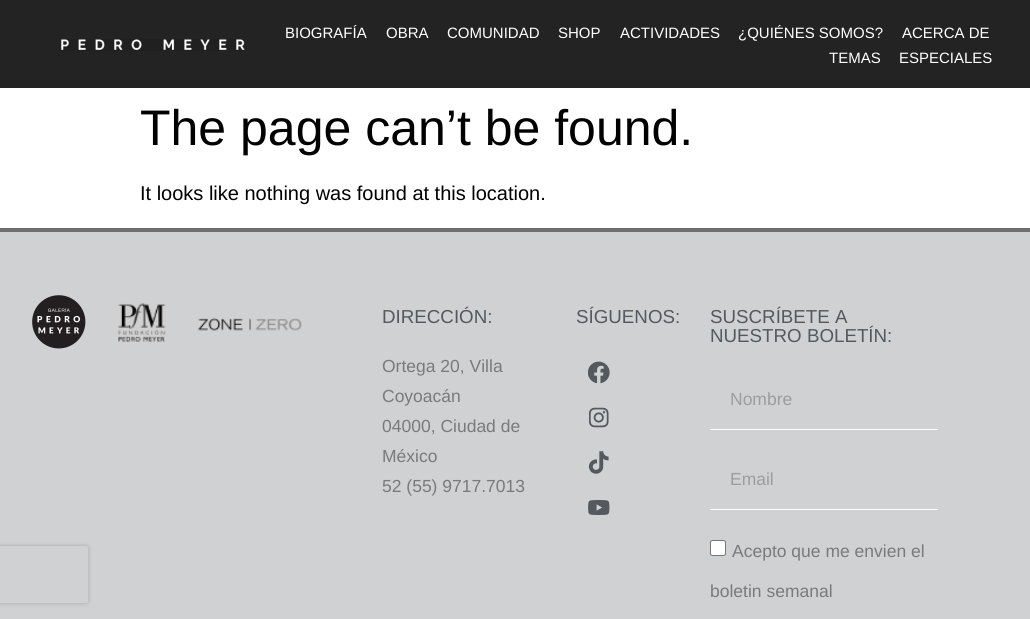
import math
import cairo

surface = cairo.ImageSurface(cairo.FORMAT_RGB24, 1030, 619)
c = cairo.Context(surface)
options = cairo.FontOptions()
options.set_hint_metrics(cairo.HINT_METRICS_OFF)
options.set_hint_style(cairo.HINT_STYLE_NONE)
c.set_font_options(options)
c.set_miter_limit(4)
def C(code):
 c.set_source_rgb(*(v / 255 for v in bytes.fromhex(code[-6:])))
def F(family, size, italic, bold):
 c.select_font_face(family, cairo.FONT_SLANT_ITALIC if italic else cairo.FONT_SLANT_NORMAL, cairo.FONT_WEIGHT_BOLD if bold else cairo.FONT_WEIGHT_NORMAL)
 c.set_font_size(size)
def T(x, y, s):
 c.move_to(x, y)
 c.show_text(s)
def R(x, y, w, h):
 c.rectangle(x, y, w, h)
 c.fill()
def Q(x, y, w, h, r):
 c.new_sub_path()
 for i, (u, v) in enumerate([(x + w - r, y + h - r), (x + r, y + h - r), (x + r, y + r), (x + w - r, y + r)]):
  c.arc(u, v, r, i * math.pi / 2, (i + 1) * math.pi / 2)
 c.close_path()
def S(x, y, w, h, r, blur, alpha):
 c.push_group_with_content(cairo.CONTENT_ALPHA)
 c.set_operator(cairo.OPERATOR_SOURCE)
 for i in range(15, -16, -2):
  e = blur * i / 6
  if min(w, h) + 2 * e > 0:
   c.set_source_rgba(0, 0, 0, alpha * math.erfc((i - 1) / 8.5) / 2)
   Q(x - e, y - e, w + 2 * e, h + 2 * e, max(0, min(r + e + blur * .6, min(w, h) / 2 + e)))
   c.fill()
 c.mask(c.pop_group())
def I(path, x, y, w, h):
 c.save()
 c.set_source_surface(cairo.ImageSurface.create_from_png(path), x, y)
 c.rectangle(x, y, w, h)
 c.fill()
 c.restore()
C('ffffff')
c.paint()
C('232323')
R(0,0,1030,88)
I('1.png',61,39,184,12)
F('Liberation Sans',15,0,0)
C('ffffff')
T(285,38,'BIOGRAFÍA')
T(386,38,'OBRA')
T(447,38,'COMUNIDAD')
T(558,38,'SHOP')
T(620,38,'ACTIVIDADES')
T(738,38,'¿QUIÉNES SOMOS?')
T(902,38,'ACERCA DE')
T(829,63,'TEMAS')
T(899,63,'ESPECIALES')
F('Liberation Sans',50,0,0)
C('000000')
T(140,145,'The page can’t be found.')
F('Liberation Sans',20,0,0)
T(140,200,'It looks like nothing was found at this location.')
C('cfd1d2')
R(0,232,1030,387)
C('6f6f6f')
R(0,228,1030,4)
I('2.png',32,295,54,54)
I('3.png',118,303,48,39)
I('4.png',198,318,104,13)
F('Liberation Sans',18.75,0,0)
C('54595f')
T(382,323,'DIRECCIÓN:')
F('Liberation Sans',17.5,0,0)
C('7a7a7a')
T(382,372,'Ortega 20, Villa')
T(382,402,'Coyoacán')
T(382,432,'04000, Ciudad de')
T(382,462,'México')
T(382,492,'52 (55) 9717.7013')
F('Liberation Sans',18.75,0,0)
C('54595f')
T(576,323,'SÍGUENOS:')
I('5.png',588,361,22,23)
I('6.png',589,407,20,21)
I('7.png',588,451,21,23)
I('8.png',588,500,22,15)
T(710,323,'SUSCRÍBETE A')
T(710,342,'NUESTRO BOLETÍN:')
C('ffffff')
R(710,429,228,1)
F('Liberation Sans',17.5,0,0)
C('9c9d9d')
T(730,405,'Nombre')
C('ffffff')
R(710,509,228,1)
C('9c9d9d')
T(730,485,'Email')
c.save()
c.set_fill_rule(cairo.FILL_RULE_EVEN_ODD)
c.new_path()
c.move_to(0,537)
c.line_to(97,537)
c.line_to(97,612)
c.line_to(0,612)
c.close_path()
c.move_to(-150,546)
c.line_to(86,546)
c.curve_to(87,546,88,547,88,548)
c.line_to(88,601)
c.curve_to(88,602,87,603,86,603)
c.line_to(-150,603)
c.curve_to(-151,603,-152,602,-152,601)
c.line_to(-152,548)
c.curve_to(-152,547,-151,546,-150,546)
c.close_path()
c.clip()
C('a8a9a9')
S(-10,546,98,57,2,2.5,1)
c.restore()
C('ffffff')
Q(710.5,540.5,15,15,2)
c.fill_preserve()
C('767676')
c.set_line_width(1)
c.stroke()
C('7a7a7a')
T(732,557,'Acepto que me envien el')
T(710,597,'boletin semanal')
surface.write_to_png('o.png')
